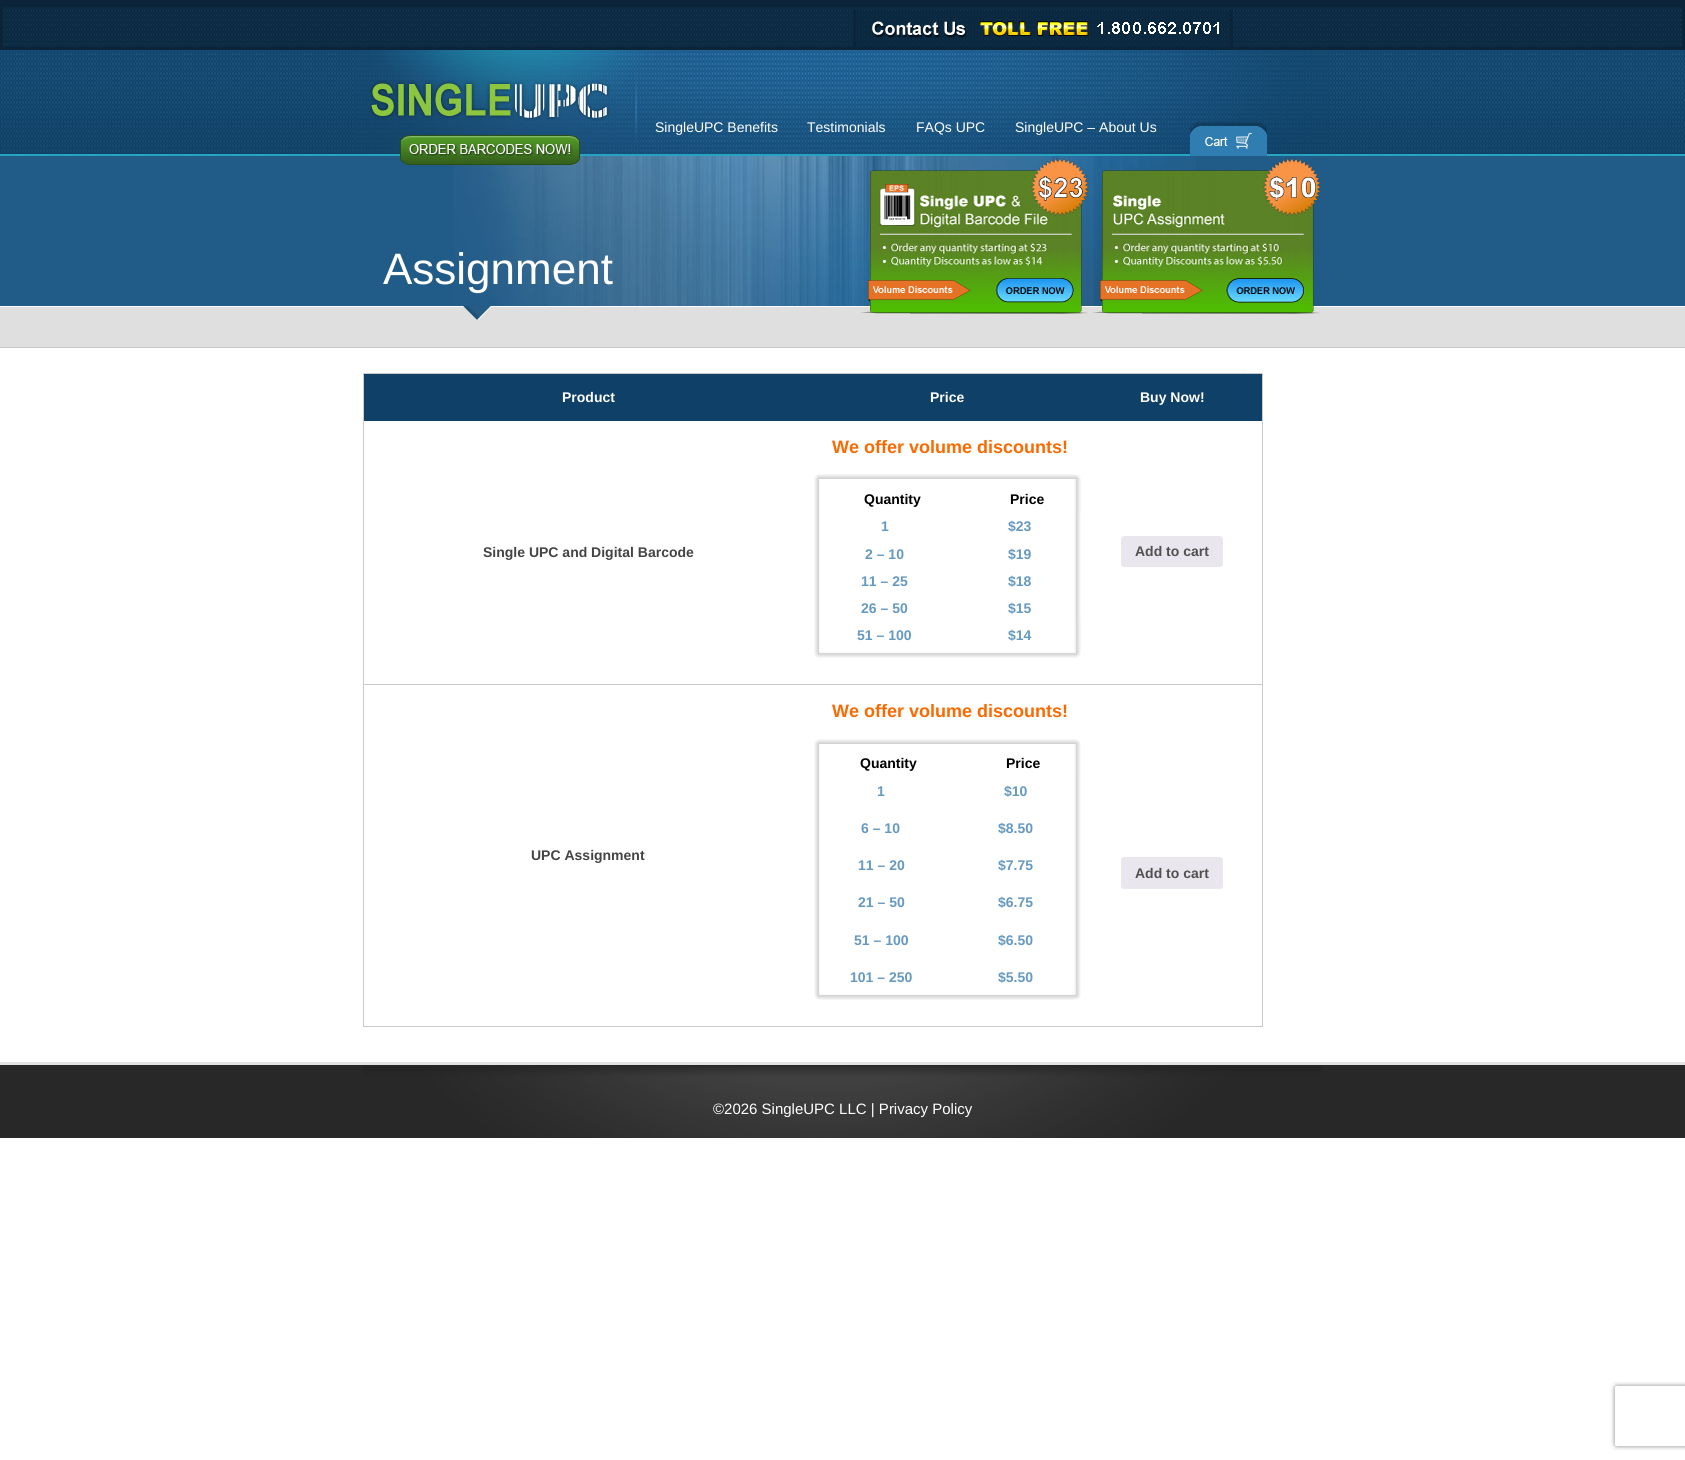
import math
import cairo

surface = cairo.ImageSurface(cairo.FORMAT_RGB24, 1685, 1460)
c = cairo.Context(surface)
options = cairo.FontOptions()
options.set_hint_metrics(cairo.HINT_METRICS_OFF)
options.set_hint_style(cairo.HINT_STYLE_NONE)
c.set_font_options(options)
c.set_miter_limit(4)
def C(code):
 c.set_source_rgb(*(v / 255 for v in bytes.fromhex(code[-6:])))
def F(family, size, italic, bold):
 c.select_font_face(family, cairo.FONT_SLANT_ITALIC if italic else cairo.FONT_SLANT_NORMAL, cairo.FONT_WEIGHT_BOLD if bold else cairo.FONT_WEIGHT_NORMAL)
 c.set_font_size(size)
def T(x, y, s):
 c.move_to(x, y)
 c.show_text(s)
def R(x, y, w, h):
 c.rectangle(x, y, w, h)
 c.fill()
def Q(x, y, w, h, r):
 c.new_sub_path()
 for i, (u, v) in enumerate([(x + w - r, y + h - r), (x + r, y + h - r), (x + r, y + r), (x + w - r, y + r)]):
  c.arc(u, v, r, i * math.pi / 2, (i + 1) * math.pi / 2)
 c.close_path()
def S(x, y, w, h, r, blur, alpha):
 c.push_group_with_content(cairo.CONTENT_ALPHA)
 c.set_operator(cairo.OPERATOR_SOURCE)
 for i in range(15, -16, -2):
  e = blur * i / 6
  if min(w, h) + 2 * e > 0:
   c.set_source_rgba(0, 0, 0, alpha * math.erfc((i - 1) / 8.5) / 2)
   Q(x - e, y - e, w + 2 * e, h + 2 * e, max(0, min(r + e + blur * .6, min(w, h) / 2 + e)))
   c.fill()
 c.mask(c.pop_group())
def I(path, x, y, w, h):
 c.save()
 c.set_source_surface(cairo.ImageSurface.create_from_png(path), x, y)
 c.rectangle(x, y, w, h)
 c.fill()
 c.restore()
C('ffffff')
c.paint()
C('0c2439')
R(0,0,1685,4)
I('1.png',3,7,1679,40)
c.rectangle(1.5,5.5,1682,43)
c.set_line_width(3)
c.stroke()
I('2.png',856,10,374,37)
R(1230,10,3,40)
R(853,10,3,40)
I('3.png',0,50,1685,104)
C('26a3c1')
R(0,154,1685,2)
I('4.png',356,50,974,104)
I('5.png',369,80,241,41)
F('Liberation Sans',14,0,0)
C('ffffff')
T(655,132,'SingleUPC Benefits')
T(807,132,'Testimonials')
T(916,132,'FAQs UPC')
T(1015,132,'SingleUPC – About Us')
I('6.png',1190,121,77,35)
C('215b87')
R(0,156,1685,150)
I('8.png',453,156,743,150)
I('7.png',400,135,180,30)
F('Liberation Sans',44,0,0)
C('ffffff')
T(383,284,'Assignment')
C('dfdfdf')
R(0,307,1685,40)
C('fcfcfc')
R(0,306,1685,1)
I('9.png',861,158,228,156)
I('10.png',1093,158,228,156)
C('c7c7c7')
R(0,347,1685,1)
I('11.png',463,306,28,14)
C('cacaca')
R(363,373,900,1)
R(1262,373,1,654)
R(363,1026,900,1)
R(363,373,1,654)
C('0f4067')
R(364,374,898,47)
F('Liberation Sans',14,0,1)
C('ffffff')
T(562,402,'Product')
T(930,402,'Price')
T(1140,402,'Buy Now!')
C('444444')
T(483,557,'Single UPC and Digital Barcode')
F('Liberation Sans',18,0,1)
C('fb6a00')
T(832,453,'We offer volume discounts!')
I('12.png',814,474,158,39)
F('Liberation Sans',14,0,1)
C('000000')
T(864,504,'Quantity')
I('13.png',972,474,109,39)
T(1010,504,'Price')
I('14.png',814,513,6,28)
C('6599c0')
T(881,531,'1')
I('15.png',1074,513,7,28)
T(1008,531,'$23')
I('16.png',814,541,6,27)
T(865,559,'2 – 10')
I('17.png',1074,541,7,27)
T(1008,559,'$19')
I('16.png',814,568,6,27)
T(861,586,'11 – 25')
I('17.png',1074,568,7,27)
T(1008,586,'$18')
I('16.png',814,595,6,27)
T(861,613,'26 – 50')
I('17.png',1074,595,7,27)
T(1008,613,'$15')
I('18.png',814,622,158,36)
T(857,640,'51 – 100')
I('19.png',972,622,109,36)
T(1008,640,'$14')
C('cacaca')
R(363,684,900,1)
C('e9e6ed')
Q(1121,536,102,31,3)
c.fill()
C('515151')
T(1135,556,'Add to cart')
C('444444')
T(531,860,'UPC Assignment')
F('Liberation Sans',18,0,1)
C('fb6a00')
T(832,717,'We offer volume discounts!')
I('20.png',814,739,150,39)
F('Liberation Sans',14,0,1)
C('000000')
T(860,768,'Quantity')
I('21.png',964,739,117,39)
T(1006,768,'Price')
I('22.png',814,778,6,37)
C('6599c0')
T(877,796,'1')
I('23.png',1074,778,7,37)
T(1004,796,'$10')
I('22.png',814,815,6,37)
T(861,833,'6 – 10')
I('23.png',1074,815,7,37)
T(998,833,'$8.50')
I('22.png',814,852,6,37)
T(858,870,'11 – 20')
I('23.png',1074,852,7,37)
T(998,870,'$7.75')
I('24.png',814,889,6,38)
T(858,907,'21 – 50')
I('25.png',1074,889,7,38)
T(998,907,'$6.75')
I('22.png',814,927,6,37)
T(854,945,'51 – 100')
I('23.png',1074,927,7,37)
T(998,945,'$6.50')
I('26.png',814,964,150,36)
T(850,982,'101 – 250')
I('27.png',964,964,117,36)
T(998,982,'$5.50')
C('e9e6ed')
Q(1121,857,102,32,3)
c.fill()
C('515151')
T(1135,878,'Add to cart')
C('282828')
R(0,1065,1685,73)
C('e2e2e2')
R(0,1062,1685,3)
I('28.png',363,1066,959,72)
F('Liberation Sans',15,0,0)
C('ffffff')
T(713,1114,'©2026 SingleUPC LLC | Privacy Policy')
c.save()
c.set_fill_rule(cairo.FILL_RULE_EVEN_ODD)
c.new_path()
c.move_to(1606,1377)
c.line_to(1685,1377)
c.line_to(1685,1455)
c.line_to(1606,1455)
c.close_path()
c.move_to(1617,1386)
c.line_to(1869,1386)
c.curve_to(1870,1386,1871,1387,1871,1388)
c.line_to(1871,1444)
c.curve_to(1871,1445,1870,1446,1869,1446)
c.line_to(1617,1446)
c.curve_to(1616,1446,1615,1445,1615,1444)
c.line_to(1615,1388)
c.curve_to(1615,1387,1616,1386,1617,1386)
c.close_path()
c.clip()
C('808080')
S(1615,1386,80,60,2,2.5,1)
c.restore()
surface.write_to_png('o.png')
